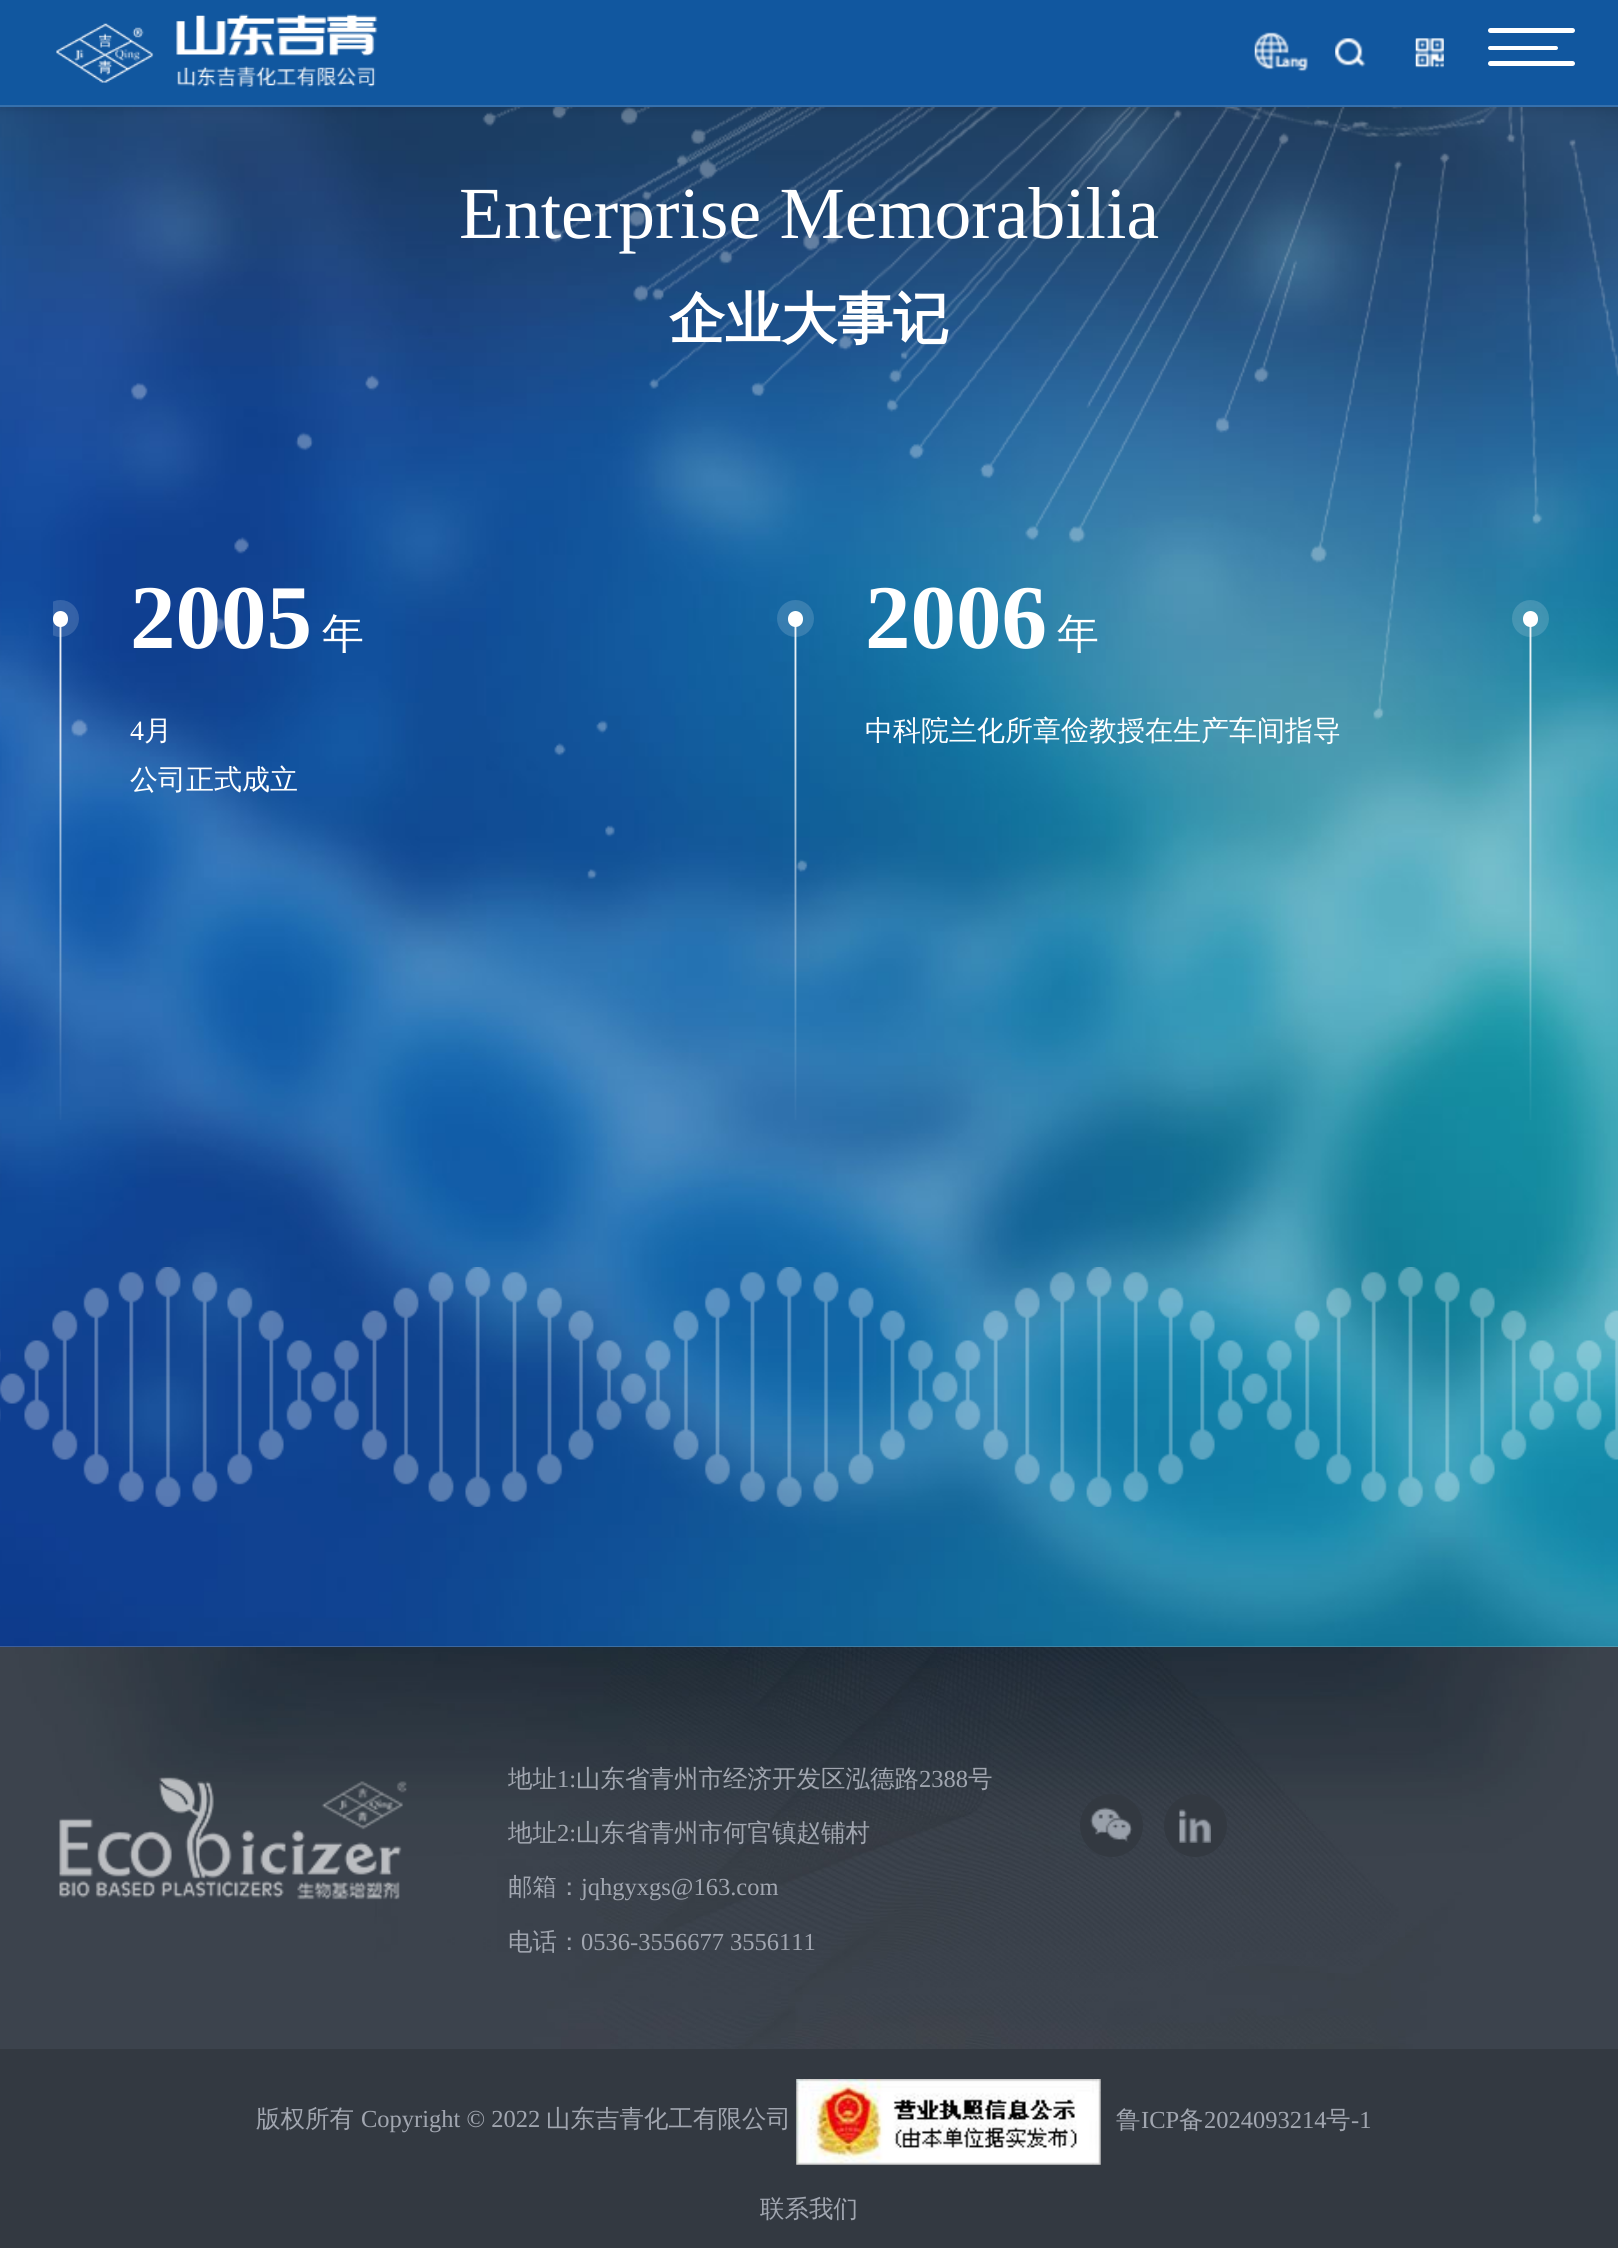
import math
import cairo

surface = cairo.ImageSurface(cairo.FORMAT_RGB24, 1618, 2248)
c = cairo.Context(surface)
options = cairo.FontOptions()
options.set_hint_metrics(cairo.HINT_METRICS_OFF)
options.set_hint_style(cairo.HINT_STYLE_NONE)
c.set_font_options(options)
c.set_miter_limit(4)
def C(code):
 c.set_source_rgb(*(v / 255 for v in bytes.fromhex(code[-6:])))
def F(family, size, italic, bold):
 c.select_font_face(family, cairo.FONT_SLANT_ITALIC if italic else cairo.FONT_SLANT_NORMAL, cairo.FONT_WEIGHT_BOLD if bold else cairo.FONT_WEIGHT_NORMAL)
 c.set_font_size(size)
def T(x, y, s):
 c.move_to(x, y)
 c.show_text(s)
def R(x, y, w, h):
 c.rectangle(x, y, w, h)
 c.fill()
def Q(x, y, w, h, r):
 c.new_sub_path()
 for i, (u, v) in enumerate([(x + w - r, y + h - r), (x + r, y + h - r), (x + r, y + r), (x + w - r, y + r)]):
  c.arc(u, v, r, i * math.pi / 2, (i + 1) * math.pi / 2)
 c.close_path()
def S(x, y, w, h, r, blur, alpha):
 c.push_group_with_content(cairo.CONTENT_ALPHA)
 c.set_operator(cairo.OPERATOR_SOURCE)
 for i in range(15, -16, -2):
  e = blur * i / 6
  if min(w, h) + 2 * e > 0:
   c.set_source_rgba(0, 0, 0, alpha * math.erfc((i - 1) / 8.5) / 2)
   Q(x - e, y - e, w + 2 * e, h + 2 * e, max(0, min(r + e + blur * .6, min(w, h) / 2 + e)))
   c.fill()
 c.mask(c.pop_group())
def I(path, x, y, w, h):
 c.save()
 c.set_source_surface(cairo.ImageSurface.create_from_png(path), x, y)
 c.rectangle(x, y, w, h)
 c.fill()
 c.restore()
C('ffffff')
c.paint()
I('11.png',0,1646,1618,403)
I('5.png',0,107,1618,1540)
I('6.png',71,107,1547,772)
C('000000')
S(0,4,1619,106,0,5,.1)
C('ffffff')
R(0,0,1618,105)
c.set_source_rgba(0.024,0.31,0.608,0.95)
R(0,0,1618,105)
C('3570ad')
R(0,105,1618,2)
I('1.png',56,14,322,73)
I('2.png',1254,32,54,40)
I('3.png',1335,38,31,29)
I('4.png',1415,38,29,30)
C('ffffff')
Q(1488,28,87,5,2.5)
c.fill()
Q(1488,46,70,4,2)
c.fill()
Q(1488,61,87,5,2.5)
c.fill()
F('Liberation Serif',73.5,0,0)
T(459,238,'Enterprise Memorabilia')
F('WenQuanYi Zen Hei',56,0,1)
T(669,338,'企业大事记')
I('7.png',59,626,3,494)
c.save()
c.rectangle(53,571,1513,574)
c.clip()
c.arc(60.5,618.5,13,0,2 * math.pi)
c.set_source_rgba(1,1,1,0.15)
c.set_line_width(11)
c.stroke()
c.restore()
Q(53,611,15,16,7.5)
c.fill()
F('Liberation Serif',91,0,1)
T(130,648,'2005')
F('WenQuanYi Zen Hei Medium',42,0,0)
T(322,648,'年')
F('Liberation Serif',28,0,0)
T(130,740,'4')
F('WenQuanYi Zen Hei Medium',28,0,0)
T(144,740,'月')
T(130,789,'公司正式成立')
I('8.png',794,626,3,494)
c.arc(795.5,618.5,13,0,2 * math.pi)
c.set_source_rgba(1,1,1,0.15)
c.set_line_width(11)
c.stroke()
C('ffffff')
Q(788,611,15,16,7.5)
c.fill()
F('Liberation Serif',91,0,1)
T(865,648,'2006')
F('WenQuanYi Zen Hei Medium',42,0,0)
T(1057,648,'年')
F('WenQuanYi Zen Hei Medium',28,0,0)
T(865,740,'中科院兰化所章俭教授在生产车间指导')
I('9.png',1529,626,3,494)
c.arc(1530.5,618.5,13,0,2 * math.pi)
c.set_source_rgba(1,1,1,0.15)
c.stroke()
C('ffffff')
Q(1523,611,15,16,7.5)
c.fill()
I('10.png',0,1267,1618,240)
I('12.png',59,1777,348,123)
F('WenQuanYi Zen Hei Medium',24.5,0,0)
C('a1a6b0')
T(508,1787,'地址')
F('Liberation Serif',24.5,0,0)
T(557,1787,'1:')
F('WenQuanYi Zen Hei Medium',24.5,0,0)
T(576,1787,'山东省青州市经济开发区泓德路')
F('Liberation Serif',24.5,0,0)
T(919,1787,'2388')
F('WenQuanYi Zen Hei Medium',24.5,0,0)
T(968,1787,'号')
T(508,1841,'地址')
F('Liberation Serif',24.5,0,0)
T(557,1841,'2:')
F('WenQuanYi Zen Hei Medium',24.5,0,0)
T(576,1841,'山东省青州市何官镇赵铺村')
T(508,1895,'邮箱：')
F('Liberation Serif',24.5,0,0)
T(581,1895,'jqhgyxgs@163.com')
F('WenQuanYi Zen Hei Medium',24.5,0,0)
T(508,1950,'电话：')
F('Liberation Serif',24.5,0,0)
T(581,1950,'0536-3556677 3556111')
C('333941')
c.new_path()
c.arc(1111.5,1825.5,31.5,0,2 * math.pi)
c.fill()
I('13.png',1090,1807,43,36)
c.arc(1195.5,1825.5,31.5,0,2 * math.pi)
c.fill()
I('14.png',1179,1809,32,34)
R(0,2049,1618,199)
F('WenQuanYi Zen Hei Medium',24.5,0,0)
C('a1a6b0')
T(256,2127,'版权所有')
F('Liberation Serif',24.5,0,0)
T(361,2127,'Copyright © 2022')
F('WenQuanYi Zen Hei Medium',24.5,0,0)
T(546,2127,'山东吉青化工有限公司')
I('15.png',796,2079,305,86)
T(1116,2128,'鲁')
F('Liberation Serif',24.5,0,0)
T(1141,2128,'ICP')
F('WenQuanYi Zen Hei Medium',24.5,0,0)
T(1179,2128,'备')
F('Liberation Serif',24.5,0,0)
T(1204,2128,'2024093214')
F('WenQuanYi Zen Hei Medium',24.5,0,0)
T(1326,2128,'号')
F('Liberation Serif',24.5,0,0)
T(1351,2128,'-1')
F('WenQuanYi Zen Hei Medium',24.5,0,0)
T(760,2217,'联系我们')
surface.write_to_png('o.png')
